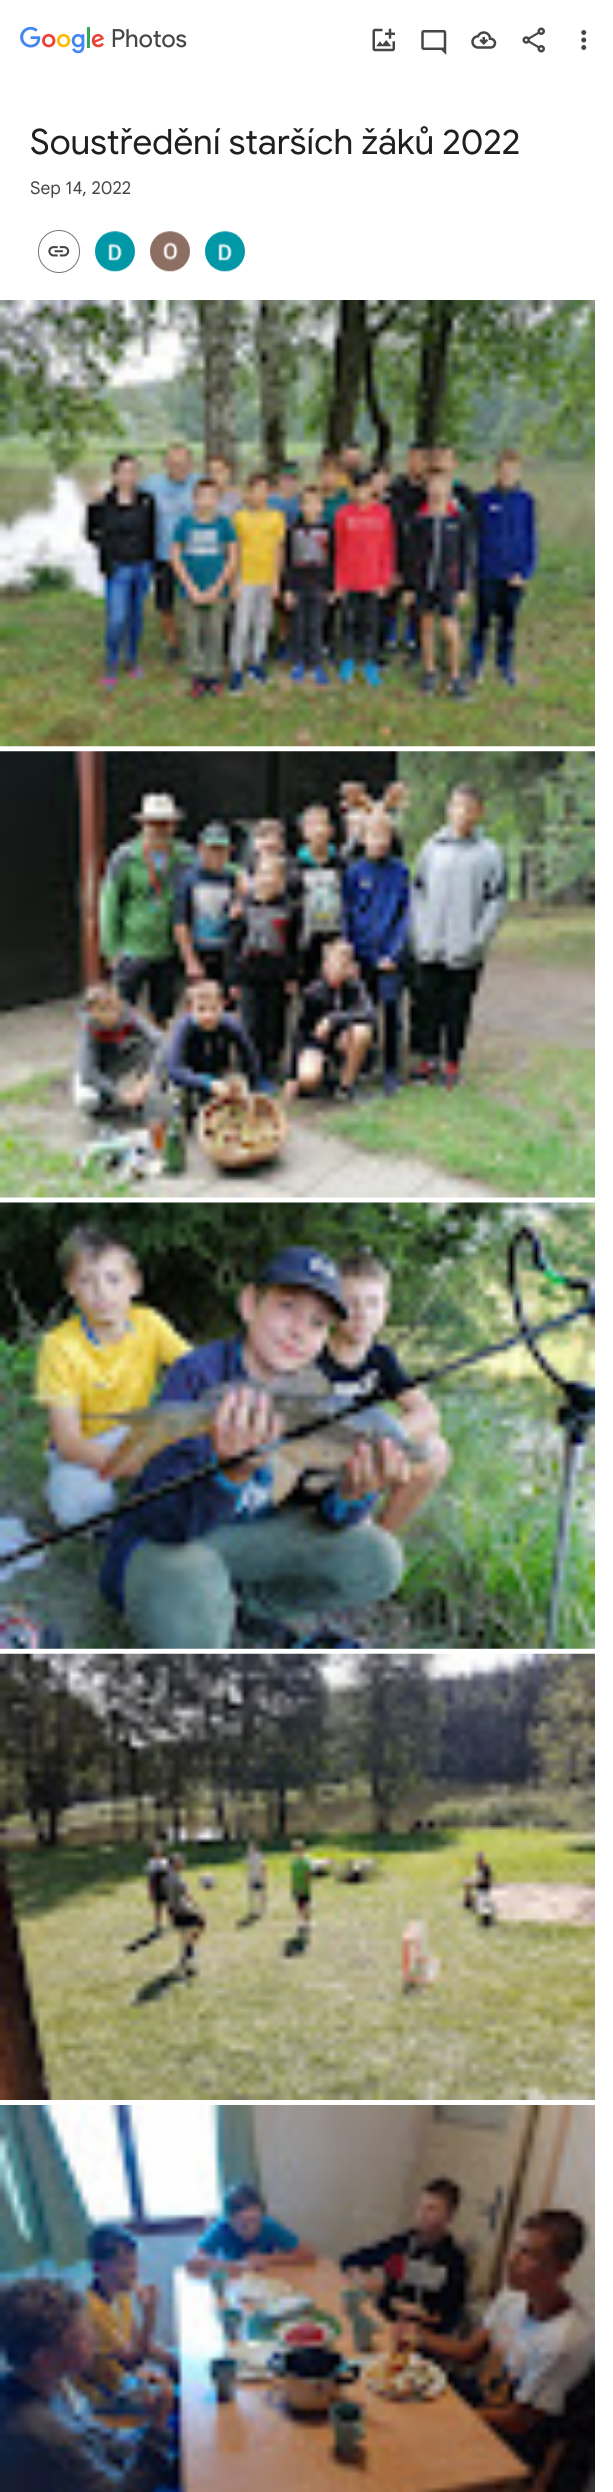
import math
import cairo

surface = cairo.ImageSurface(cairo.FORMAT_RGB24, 613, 2492)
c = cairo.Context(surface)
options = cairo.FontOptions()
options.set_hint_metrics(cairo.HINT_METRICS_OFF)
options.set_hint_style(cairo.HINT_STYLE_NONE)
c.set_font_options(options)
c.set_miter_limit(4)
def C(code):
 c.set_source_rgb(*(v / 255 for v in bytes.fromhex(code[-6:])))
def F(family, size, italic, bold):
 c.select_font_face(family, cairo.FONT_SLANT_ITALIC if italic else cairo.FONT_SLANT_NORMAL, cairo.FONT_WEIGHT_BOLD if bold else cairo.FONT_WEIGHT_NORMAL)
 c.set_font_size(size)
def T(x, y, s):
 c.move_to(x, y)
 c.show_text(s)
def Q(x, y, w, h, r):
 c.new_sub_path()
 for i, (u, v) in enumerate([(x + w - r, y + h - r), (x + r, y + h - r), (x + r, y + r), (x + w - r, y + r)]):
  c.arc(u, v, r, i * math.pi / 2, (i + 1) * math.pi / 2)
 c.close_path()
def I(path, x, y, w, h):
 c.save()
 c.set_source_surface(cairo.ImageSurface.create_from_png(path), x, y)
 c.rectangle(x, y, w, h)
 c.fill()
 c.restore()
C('ffffff')
c.paint()
I('1.png',20,26,84,28)
F('Product Sans',25,0,0)
C('444746')
T(111,47,'Photos')
I('2.png',372,28,23,24)
I('3.png',421,30,26,25)
I('4.png',471,31,26,18)
I('5.png',522,27,23,26)
I('6.png',581,30,6,20)
F('Google Sans',35,0,0)
C('1f1f1f')
T(30,154,'Soustředění starších žáků 2022')
F('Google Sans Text',17.5,0,0)
C('444746')
T(30,194,'Sep 14, 2022')
Q(38.5,230.5,41,42,20.5)
C('747775')
c.set_line_width(1)
c.stroke()
I('7.png',48,246,22,11)
I('8.png',95,231,40,41)
I('9.png',150,231,40,41)
I('10.png',205,231,40,41)
I('11.png',0,300,595,447)
I('12.png',0,751,595,447)
I('13.png',0,1202,595,447)
I('14.png',0,1653,595,447)
I('15.png',0,2105,595,387)
surface.write_to_png('o.png')
